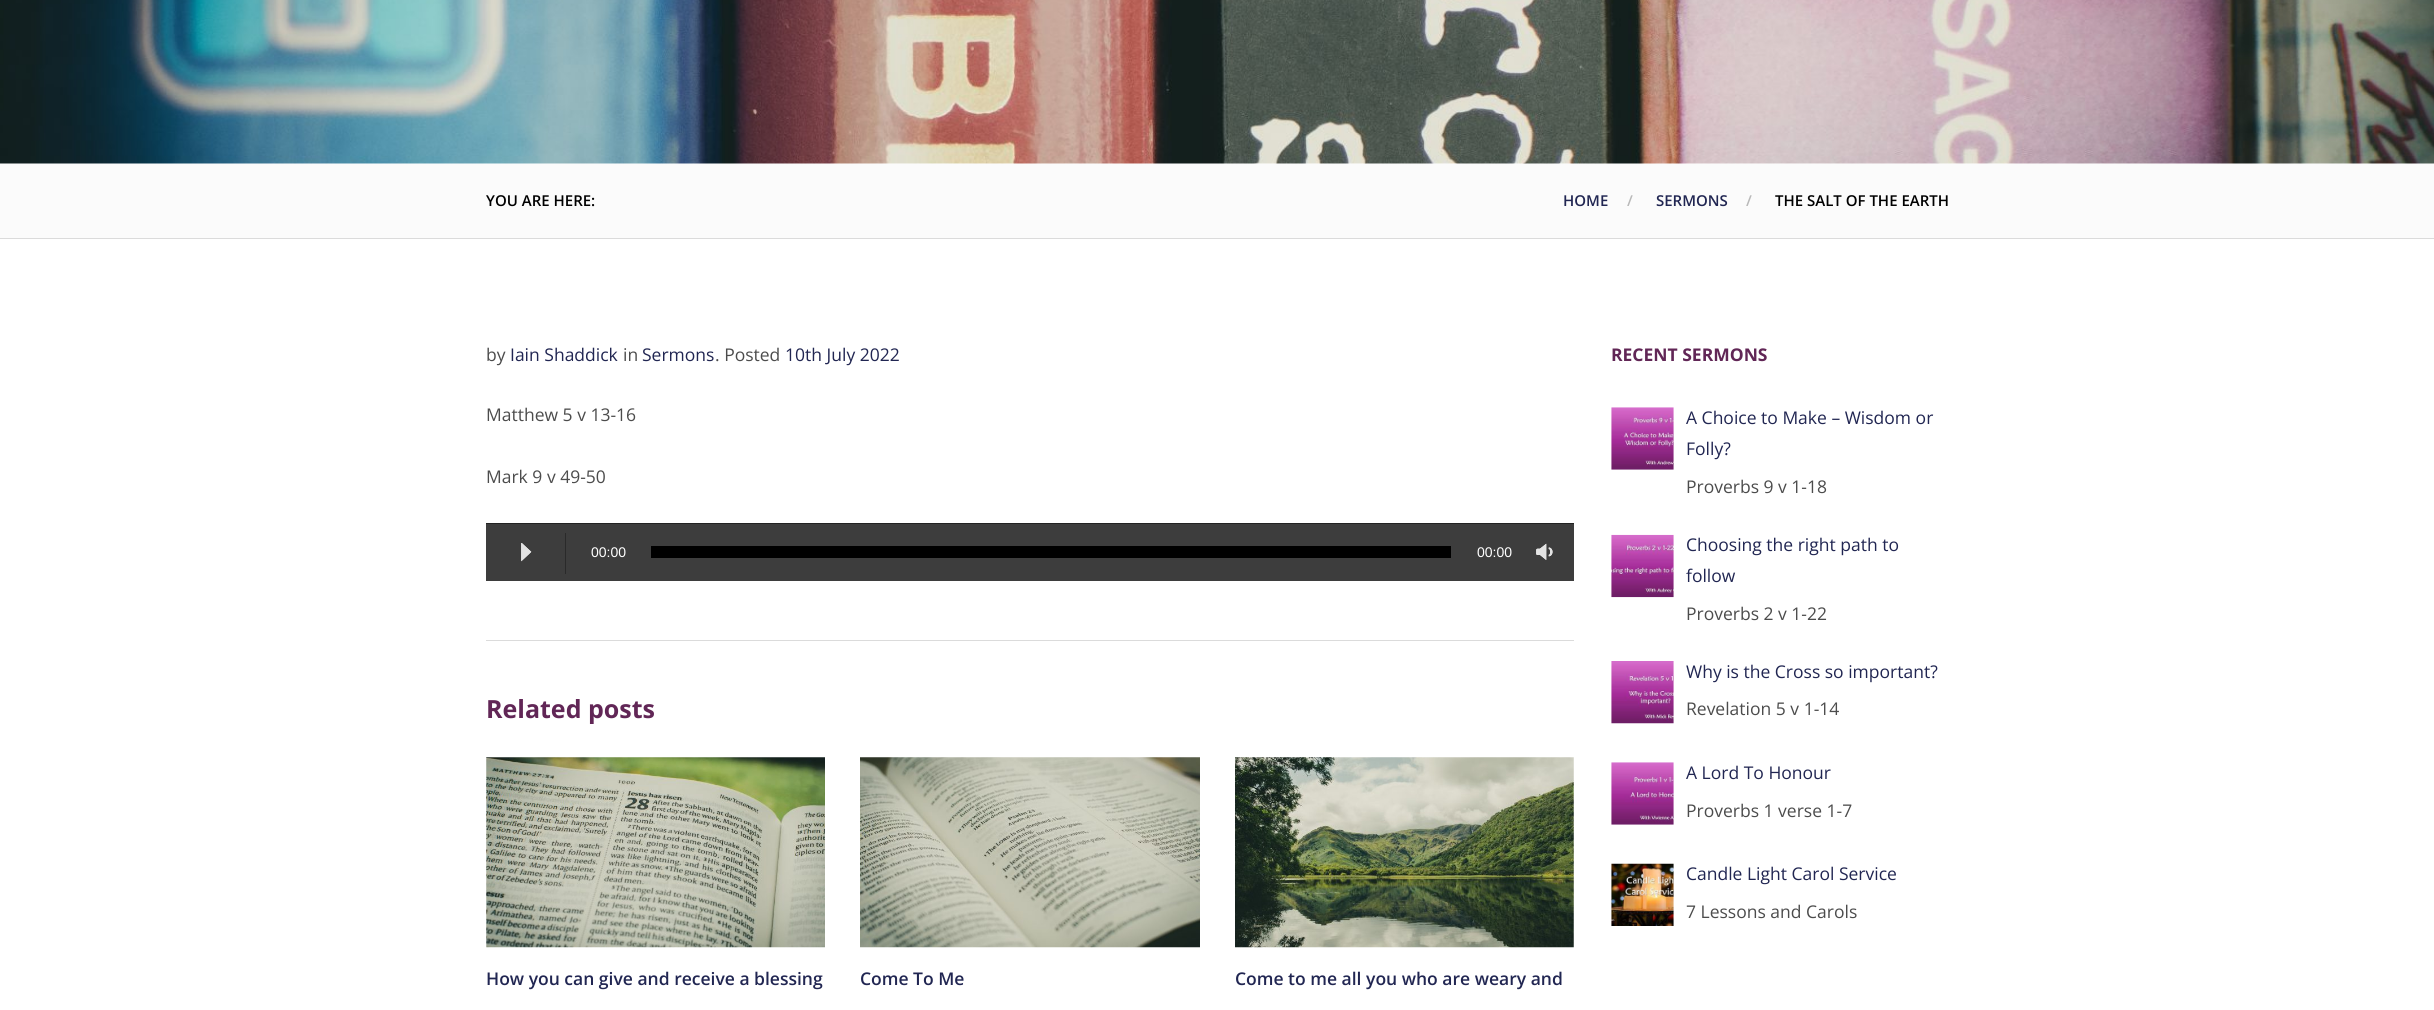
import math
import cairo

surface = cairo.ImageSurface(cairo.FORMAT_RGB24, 2434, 1010)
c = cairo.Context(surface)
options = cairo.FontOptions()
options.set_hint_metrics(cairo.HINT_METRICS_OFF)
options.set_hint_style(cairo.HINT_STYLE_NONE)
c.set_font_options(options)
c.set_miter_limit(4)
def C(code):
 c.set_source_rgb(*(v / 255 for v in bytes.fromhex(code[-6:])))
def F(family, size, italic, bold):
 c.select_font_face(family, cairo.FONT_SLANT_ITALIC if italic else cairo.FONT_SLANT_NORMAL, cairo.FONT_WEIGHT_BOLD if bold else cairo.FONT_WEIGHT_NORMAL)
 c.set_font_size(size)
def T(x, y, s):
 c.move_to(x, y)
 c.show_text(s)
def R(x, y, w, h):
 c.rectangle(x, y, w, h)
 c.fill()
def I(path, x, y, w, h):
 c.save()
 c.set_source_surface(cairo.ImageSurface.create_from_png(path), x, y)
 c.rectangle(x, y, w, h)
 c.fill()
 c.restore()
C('ffffff')
c.paint()
I('1.png',0,0,2434,164)
C('fbfbfb')
R(0,164,2434,74)
C('dbdbdb')
R(0,238,2434,1)
F('Open Sans SemiBold',15,0,0)
C('000000')
T(486,206,'YOU ARE HERE:')
C('212652')
T(1563,206,'HOME')
C('b9b9b9')
T(1627,206,'/')
C('212652')
T(1656,206,'SERMONS')
C('b9b9b9')
T(1746,206,'/')
C('000000')
T(1775,206,'THE SALT OF THE EARTH')
F('Open Sans',17.5,0,0)
C('4c4c4c')
T(486,361,'by')
C('212652')
T(510,361,'Iain Shaddick')
C('4c4c4c')
T(623,361,'in')
C('212652')
T(642,361,'Sermons')
C('4c4c4c')
T(715,361,'. Posted')
C('212652')
T(785,361,'10th July 2022')
C('4c4c4c')
T(486,421,'Matthew 5 v 13-16')
T(486,483,'Mark 9 v 49-50')
C('222222')
R(486,523,1088,1)
C('3d3d3d')
R(486,524,1088,57)
I('2.png',521,543,11,19)
C('2a2a2a')
R(565,533,1,41)
F('Liberation Sans',14,0,0)
C('ffffff')
T(591,557,'00:00')
C('000000')
R(651,546,800,12)
C('ffffff')
T(1477,557,'00:00')
I('3.png',1536,543,17,17)
C('dbdbdb')
R(486,640,1088,1)
F('Open Sans',25,0,1)
C('612656')
T(486,718,'Related posts')
I('4.png',486,757,339,191)
F('Open Sans SemiBold',17.5,0,0)
C('212652')
T(486,985,'How you can give and receive a blessing')
I('5.png',860,757,340,191)
T(860,985,'Come To Me')
I('6.png',1235,757,339,191)
T(1235,985,'Come to me all you who are weary and')
F('Open Sans',17.5,0,1)
C('612656')
T(1611,361,'RECENT SERMONS')
I('7.png',1611,407,63,63)
F('Open Sans',17.5,0,0)
C('212652')
T(1686,424,'A Choice to Make – Wisdom or')
T(1686,455,'Folly?')
C('4c4c4c')
T(1686,493,'Proverbs 9 v 1-18')
I('8.png',1611,534,63,64)
C('212652')
T(1686,551,'Choosing the right path to')
T(1686,582,'follow')
C('4c4c4c')
T(1686,620,'Proverbs 2 v 1-22')
I('9.png',1611,661,63,63)
C('212652')
T(1686,678,'Why is the Cross so important?')
C('4c4c4c')
T(1686,715,'Revelation 5 v 1-14')
I('10.png',1611,762,63,63)
C('212652')
T(1686,779,'A Lord To Honour')
C('4c4c4c')
T(1686,817,'Proverbs 1 verse 1-7')
I('11.png',1611,863,63,63)
C('212652')
T(1686,880,'Candle Light Carol Service')
C('4c4c4c')
T(1686,918,'7 Lessons and Carols')
surface.write_to_png('o.png')
